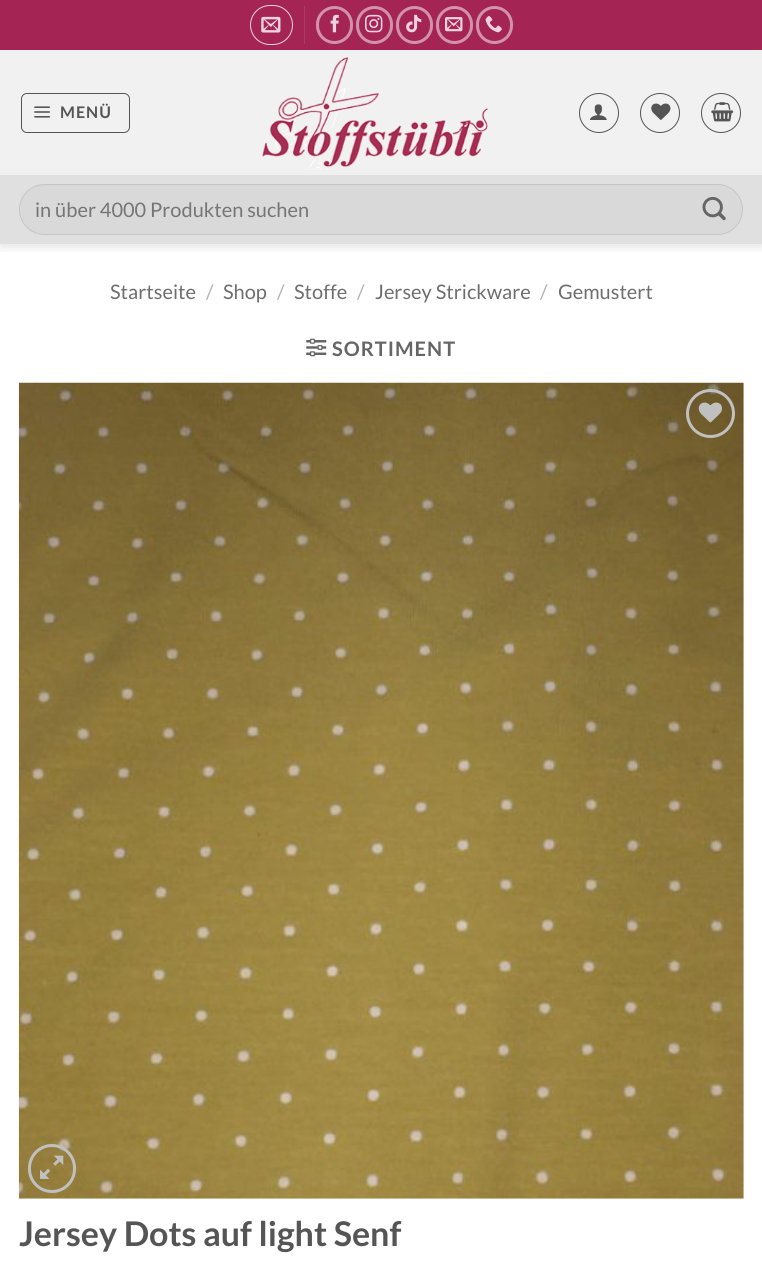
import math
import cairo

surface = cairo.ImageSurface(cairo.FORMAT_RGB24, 762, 1270)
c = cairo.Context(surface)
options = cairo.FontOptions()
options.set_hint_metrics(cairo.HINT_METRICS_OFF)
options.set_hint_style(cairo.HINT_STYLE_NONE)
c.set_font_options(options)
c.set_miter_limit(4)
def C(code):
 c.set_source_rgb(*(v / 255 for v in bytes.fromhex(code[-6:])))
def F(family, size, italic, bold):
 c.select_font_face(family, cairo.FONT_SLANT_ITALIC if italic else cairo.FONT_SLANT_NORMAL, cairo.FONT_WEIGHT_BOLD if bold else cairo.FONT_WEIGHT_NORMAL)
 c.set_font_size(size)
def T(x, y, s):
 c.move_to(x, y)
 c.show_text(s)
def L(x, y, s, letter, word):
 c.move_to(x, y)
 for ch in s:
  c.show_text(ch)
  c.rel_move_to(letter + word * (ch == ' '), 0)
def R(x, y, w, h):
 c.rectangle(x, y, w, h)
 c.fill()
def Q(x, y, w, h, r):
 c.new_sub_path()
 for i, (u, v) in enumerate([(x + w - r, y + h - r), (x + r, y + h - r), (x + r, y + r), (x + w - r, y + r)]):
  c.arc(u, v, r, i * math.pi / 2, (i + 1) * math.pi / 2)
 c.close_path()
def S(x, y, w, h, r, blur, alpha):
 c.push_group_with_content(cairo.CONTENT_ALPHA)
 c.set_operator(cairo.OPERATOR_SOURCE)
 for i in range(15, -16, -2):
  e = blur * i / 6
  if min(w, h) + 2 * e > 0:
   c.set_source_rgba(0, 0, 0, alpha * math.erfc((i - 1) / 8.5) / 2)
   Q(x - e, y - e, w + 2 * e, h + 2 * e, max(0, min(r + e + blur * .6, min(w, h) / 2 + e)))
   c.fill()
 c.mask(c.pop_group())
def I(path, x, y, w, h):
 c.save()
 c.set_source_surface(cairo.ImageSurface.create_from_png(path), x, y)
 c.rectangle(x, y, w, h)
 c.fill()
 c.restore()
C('ffffff')
c.paint()
c.save()
c.rectangle(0,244,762,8)
c.clip()
C('000000')
S(1,1,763,244,0,6,.15)
c.restore()
C('a42454')
R(0,0,762,50)
Q(250.5,5.5,42,39,19.5)
C('edd3dd')
c.set_line_width(1)
c.stroke()
I('1.png',261,16,20,17)
C('ad3a65')
R(304,6,1,38)
Q(317.5,7.5,34,35,17)
C('d292aa')
c.set_line_width(3)
c.stroke()
I('2.png',330,14,9,19)
Q(357.5,7.5,34,35,17)
c.stroke()
I('3.png',365,14,18,19)
Q(397.5,7.5,34,35,17)
c.stroke()
I('4.png',406,14,16,19)
Q(437.5,7.5,34,35,17)
c.stroke()
I('5.png',445,17,18,15)
Q(477.5,7.5,34,35,17)
c.stroke()
I('6.png',485,16,17,17)
c.set_source_rgba(0.941,0.941,0.941,0.9)
R(0,50,762,125)
Q(21.5,93.5,108,39,5.5)
C('555555')
c.set_line_width(1)
c.stroke()
I('7.png',34,106,17,12)
F('Lato',16,0,1)
L(60,118,'MENÜ',1,0)
I('8.png',262,57,226,112)
c.arc(599,113,19.5,0,2 * math.pi)
c.stroke()
I('9.png',590,104,17,16)
c.arc(660,113,19.5,0,2 * math.pi)
c.stroke()
I('10.png',651,103,20,17)
c.arc(721,113,19.5,0,2 * math.pi)
c.stroke()
I('11.png',711,102,23,20)
C('e0e0e0')
R(0,175,762,69)
C('d9d9d9')
Q(19,184,724,51,25.5)
c.fill()
Q(19.5,184.5,723,50,25)
c.set_source_rgba(0,0,0,0.09)
c.stroke()
F('Lato',20,0,0)
C('757575')
T(35,217,'in über 4000 Produkten suchen')
I('12.png',702,196,24,25)
C('6e6e6e')
T(110,299,'Startseite')
C('b2b2b2')
T(206,299,'/')
C('6e6e6e')
T(223,299,'Shop')
C('b2b2b2')
T(277,299,'/')
C('6e6e6e')
T(294,299,'Stoffe')
C('b2b2b2')
T(357,299,'/')
C('6e6e6e')
T(375,299,'Jersey Strickware')
C('b2b2b2')
T(540,299,'/')
C('6e6e6e')
T(558,299,'Gemustert')
I('13.png',306,338,21,19)
F('Lato',20,0,1)
C('666666')
L(332,356,'SORTIMENT',1,0)
I('14.png',18,382,726,817)
c.arc(710.5,413.5,23,0,2 * math.pi)
C('c0c0c0')
c.set_line_width(3)
c.stroke()
I('15.png',698,402,24,21)
Q(29.5,1145.5,45,46,22.5)
c.stroke()
I('16.png',40,1155,24,24)
F('Lato',34,0,1)
C('555555')
T(19,1246,'Jersey Dots auf light Senf')
surface.write_to_png('o.png')
